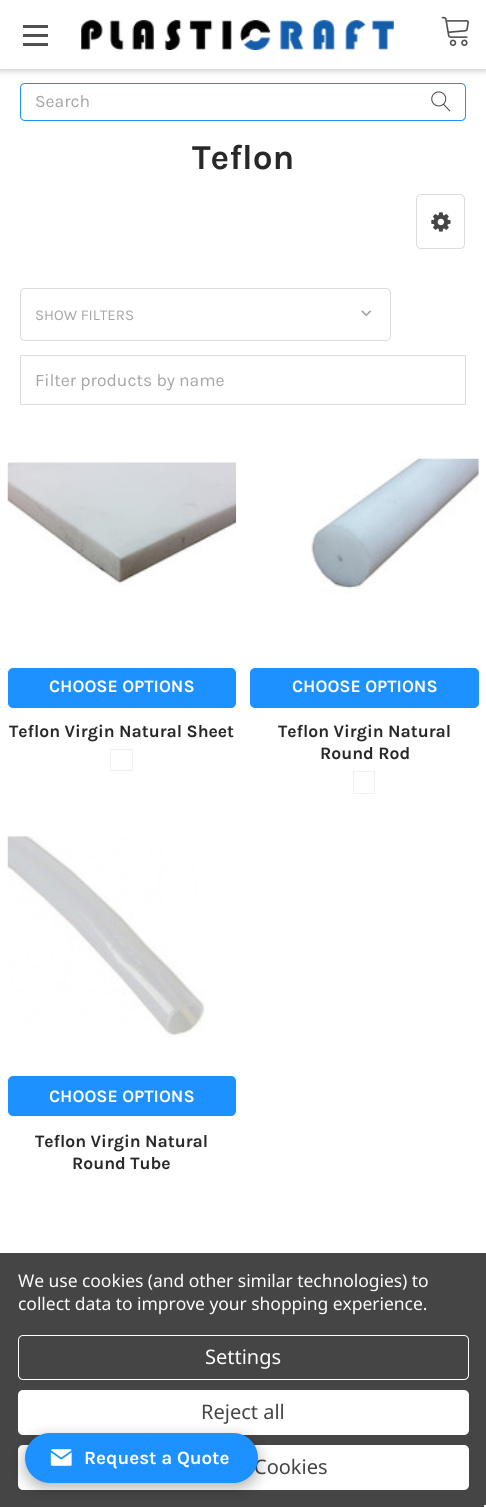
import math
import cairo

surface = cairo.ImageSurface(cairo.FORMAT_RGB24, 486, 1507)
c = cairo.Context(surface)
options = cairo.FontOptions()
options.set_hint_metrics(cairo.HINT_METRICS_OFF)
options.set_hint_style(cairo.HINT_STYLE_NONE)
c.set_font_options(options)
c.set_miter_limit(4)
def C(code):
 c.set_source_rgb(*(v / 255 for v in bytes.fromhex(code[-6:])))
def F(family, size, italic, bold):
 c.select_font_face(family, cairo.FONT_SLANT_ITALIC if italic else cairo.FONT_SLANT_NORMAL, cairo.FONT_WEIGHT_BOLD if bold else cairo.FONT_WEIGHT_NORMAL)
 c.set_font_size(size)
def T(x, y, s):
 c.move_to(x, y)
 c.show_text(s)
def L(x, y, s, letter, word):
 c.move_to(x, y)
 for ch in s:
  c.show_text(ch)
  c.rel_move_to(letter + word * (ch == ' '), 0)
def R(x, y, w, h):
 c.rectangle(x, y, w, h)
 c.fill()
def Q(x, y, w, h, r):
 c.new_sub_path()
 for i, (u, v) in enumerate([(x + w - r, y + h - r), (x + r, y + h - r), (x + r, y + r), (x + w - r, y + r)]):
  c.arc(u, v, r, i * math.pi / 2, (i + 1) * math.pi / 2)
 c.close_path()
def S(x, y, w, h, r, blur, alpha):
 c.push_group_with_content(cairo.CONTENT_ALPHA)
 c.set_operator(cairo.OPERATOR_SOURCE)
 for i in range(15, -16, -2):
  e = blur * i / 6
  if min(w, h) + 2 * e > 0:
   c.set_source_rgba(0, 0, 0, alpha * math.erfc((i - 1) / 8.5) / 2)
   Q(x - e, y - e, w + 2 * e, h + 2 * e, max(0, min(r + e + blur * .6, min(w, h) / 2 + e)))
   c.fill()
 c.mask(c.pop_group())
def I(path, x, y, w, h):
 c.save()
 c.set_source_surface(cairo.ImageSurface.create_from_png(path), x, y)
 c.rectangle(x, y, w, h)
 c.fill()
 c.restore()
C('ffffff')
c.paint()
C('000000')
S(0,3,486,68,0,3,.2)
C('ffffff')
R(0,0,486,69)
C('505050')
R(23,34,25,3)
R(23,25,25,3)
R(23,43,25,3)
I('1.png',81,19,313,31)
I('2.png',441,16,28,31)
Q(20.5,83.5,445,37,4.5)
C('1c91ff')
c.set_line_width(1)
c.stroke()
F('Karla',17.5,0,0)
C('a5a5a5')
T(35,107,'Search')
I('3.png',431,91,20,21)
F('Karla',35,0,1)
C('282828')
T(192,169,'Teflon')
Q(416.5,194.5,48,54,4.5)
C('dcdcdc')
c.stroke()
I('4.png',431,212,20,20)
Q(20.5,288.5,370,52,4.5)
c.stroke()
F('Karla',15,0,0)
C('a5a5a5')
T(35,320,'SHOW FILTERS')
I('5.png',361,310,11,7)
c.rectangle(20.5,355.5,445,49)
C('dcdcdc')
c.stroke()
F('Karla',17.5,0,0)
C('a5a5a5')
T(35,386,'Filter products by name')
I('6.png',7,462,230,125)
C('1c91ff')
Q(8.5,668.5,227,39,4.5)
c.fill_preserve()
c.stroke()
F('Karla',17.5,0,1)
C('ffffff')
T(49,692,'CHOOSE OPTIONS')
C('282828')
T(9,737,'Teflon Virgin Natural Sheet')
c.rectangle(110.5,749.5,22,21)
C('f0f0f0')
c.stroke()
I('7.png',311,458,168,136)
C('1c91ff')
Q(250.5,668.5,228,39,4.5)
c.fill_preserve()
c.stroke()
C('ffffff')
T(292,692,'CHOOSE OPTIONS')
C('282828')
T(278,737,'Teflon Virgin Natural')
T(320,759,'Round Rod')
c.rectangle(353.5,771.5,21,22)
C('f0f0f0')
c.stroke()
I('8.png',7,836,199,201)
C('1c91ff')
Q(8.5,1076.5,227,39,4.5)
c.fill_preserve()
c.stroke()
C('ffffff')
T(49,1102,'CHOOSE OPTIONS')
C('282828')
T(35,1147,'Teflon Virgin Natural')
T(72,1169,'Round Tube')
C('454545')
R(0,1253,486,254)
F('Noto Sans',17.5,0,0)
C('ffffff')
L(18,1287,'We use cookies (and other similar technologies) to',-.05,0)
L(18,1310,'collect data to improve your shopping experience.',-.05,0)
Q(18.5,1335.5,450,44,4.5)
c.stroke()
F('Noto Sans',20,0,0)
T(205,1364,'Settings')
Q(18,1390,451,45,5)
c.fill()
C('454545')
T(201,1419,'Reject all')
C('ffffff')
Q(18,1445,451,45,5)
c.fill()
C('454545')
T(254,1474,'Cookies')
C('000000')
S(25,1438,233,50,25,7.5,.3)
C('1c91ff')
Q(25,1433,233,50,25)
c.fill()
I('9.png',50,1449,22,17)
F('Karla',18.75,0,1)
C('ffffff')
T(84,1464,'Request a Quote')
C('f5f5f5')
R(484,1505,2,2)
surface.write_to_png('o.png')
